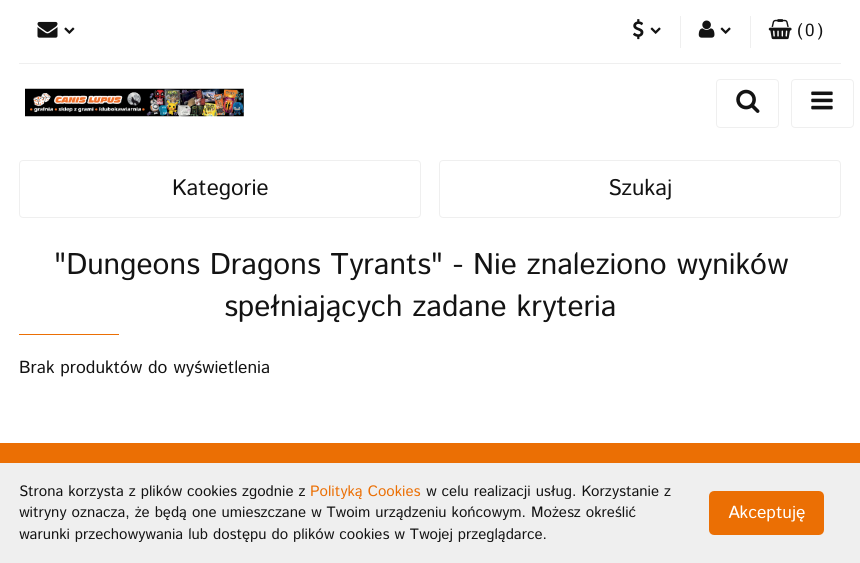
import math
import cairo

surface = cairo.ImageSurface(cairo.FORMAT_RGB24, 860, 563)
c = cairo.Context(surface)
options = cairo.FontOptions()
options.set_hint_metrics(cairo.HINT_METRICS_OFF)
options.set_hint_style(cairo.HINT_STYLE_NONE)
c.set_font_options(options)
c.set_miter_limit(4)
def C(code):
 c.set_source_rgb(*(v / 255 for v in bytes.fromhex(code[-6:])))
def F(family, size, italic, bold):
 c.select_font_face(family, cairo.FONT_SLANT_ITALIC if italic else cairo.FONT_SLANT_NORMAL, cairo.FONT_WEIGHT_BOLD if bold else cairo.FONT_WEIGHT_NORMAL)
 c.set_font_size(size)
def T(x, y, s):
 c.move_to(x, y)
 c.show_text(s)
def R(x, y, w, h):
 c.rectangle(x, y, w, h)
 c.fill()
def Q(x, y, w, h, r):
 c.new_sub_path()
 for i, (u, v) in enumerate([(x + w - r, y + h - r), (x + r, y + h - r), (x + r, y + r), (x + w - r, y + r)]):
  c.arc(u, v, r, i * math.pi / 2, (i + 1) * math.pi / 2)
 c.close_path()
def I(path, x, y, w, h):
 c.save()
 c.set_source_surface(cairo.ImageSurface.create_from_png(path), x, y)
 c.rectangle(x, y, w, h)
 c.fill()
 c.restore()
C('ffffff')
c.paint()
C('efefef')
R(19,63,822,1)
I('1.png',37,21,21,17)
I('2.png',64,27,11,7)
I('3.png',633,19,11,21)
I('4.png',650,27,11,7)
R(680,16,1,32)
I('5.png',698,20,17,18)
I('4.png',720,27,11,7)
R(750,16,1,32)
I('6.png',768,19,24,21)
F('Istok Web',17.5,0,0)
C('131313')
T(797,36,'(')
T(805,36,'0')
T(817,36,')')
I('7.png',25,88,219,29)
Q(716.5,79.5,62,48,3.5)
C('efefef')
c.set_line_width(1)
c.stroke()
I('8.png',736,89,24,24)
Q(791.5,79.5,62,48,3.5)
c.stroke()
I('9.png',811,91,22,19)
Q(19.5,160.5,401,57,3.5)
c.stroke()
F('Istok Web',22.5,0,0)
C('131313')
T(172,195,'Kategorie')
Q(439.5,160.5,401,57,3.5)
C('efefef')
c.stroke()
C('131313')
T(608,195,'Szukaj')
F('Istok Web',30,0,0)
T(54,274,'"Dungeons Dragons Tyrants" - Nie znaleziono wyników')
T(224,316,'spełniających zadane kryteria')
C('eb6f04')
R(19,334,100,1)
F('Istok Web',17.5,0,0)
C('131313')
T(19,373,'Brak produktów do wyświetlenia')
C('eb6f04')
R(0,443,860,20)
C('efefef')
R(0,463,860,100)
F('Istok Web',15,0,0)
C('131313')
T(19,496,'Strona korzysta z plików cookies zgodnie z')
C('eb6f04')
T(310,496,'Polityką Cookies')
C('131313')
T(426,496,'w celu realizacji usług. Korzystanie z')
T(19,517,'witryny oznacza, że będą one umieszczane w Twoim urządzeniu końcowym. Możesz określić')
T(19,539,'warunki przechowywania lub dostępu do plików cookies w Twojej przeglądarce.')
C('eb6f04')
Q(711,493,111,40,3)
c.fill_preserve()
c.set_line_width(4)
c.stroke()
F('Istok Web',17.5,0,0)
C('ffffff')
T(728,518,'Akceptuję')
surface.write_to_png('o.png')
